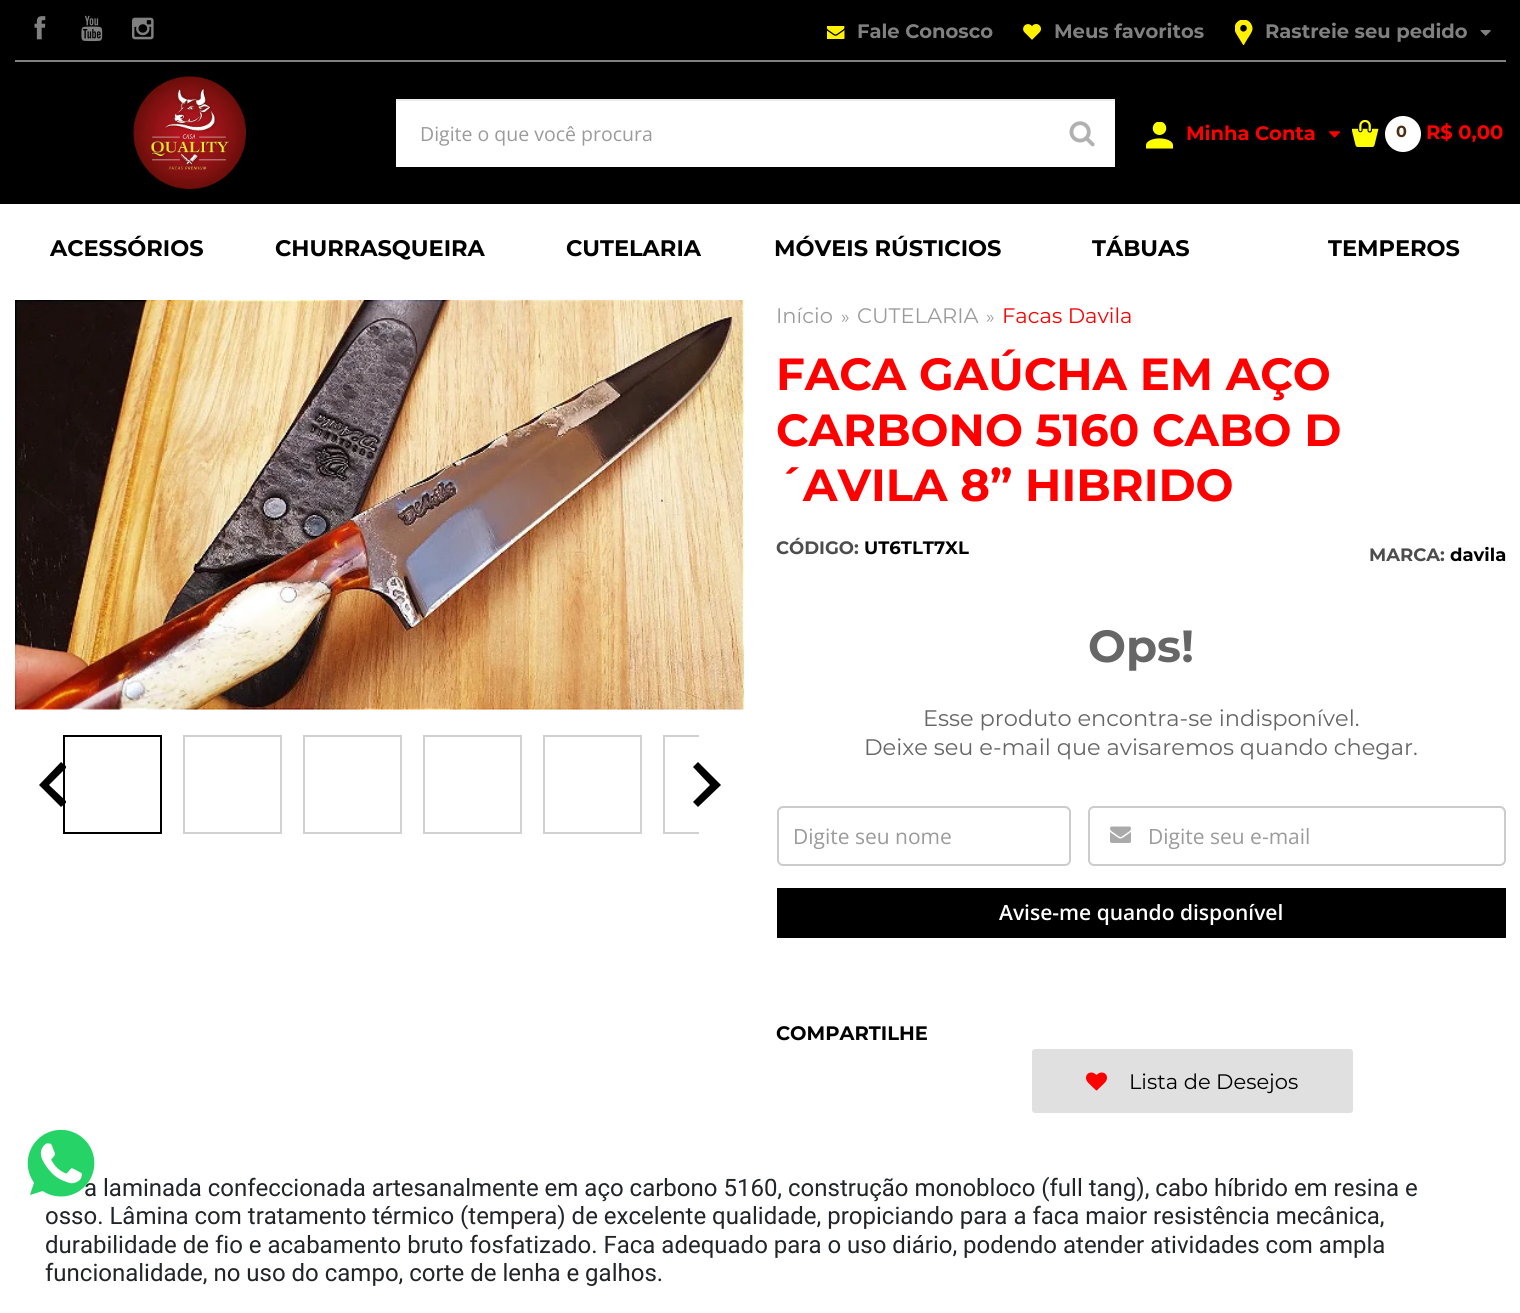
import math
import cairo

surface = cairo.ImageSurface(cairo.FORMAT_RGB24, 1520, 1313)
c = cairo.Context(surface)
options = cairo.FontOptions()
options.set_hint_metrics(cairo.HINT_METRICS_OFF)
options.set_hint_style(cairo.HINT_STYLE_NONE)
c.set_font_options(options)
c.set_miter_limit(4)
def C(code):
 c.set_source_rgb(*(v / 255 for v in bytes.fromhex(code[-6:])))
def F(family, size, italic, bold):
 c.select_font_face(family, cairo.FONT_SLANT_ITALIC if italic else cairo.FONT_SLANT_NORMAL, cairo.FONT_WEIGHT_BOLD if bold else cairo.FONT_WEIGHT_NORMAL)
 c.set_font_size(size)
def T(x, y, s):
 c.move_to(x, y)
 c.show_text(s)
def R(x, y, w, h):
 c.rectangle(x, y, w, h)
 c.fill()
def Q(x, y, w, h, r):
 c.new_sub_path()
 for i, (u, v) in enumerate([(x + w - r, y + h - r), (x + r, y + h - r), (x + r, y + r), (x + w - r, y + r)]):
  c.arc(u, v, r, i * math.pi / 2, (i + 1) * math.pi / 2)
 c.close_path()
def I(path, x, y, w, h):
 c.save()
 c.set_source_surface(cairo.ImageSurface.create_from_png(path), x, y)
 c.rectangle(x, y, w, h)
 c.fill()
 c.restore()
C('ffffff')
c.paint()
C('000000')
R(0,0,1520,204)
C('808080')
R(15,60,1491,2)
I('1.png',34,16,12,24)
I('2.png',81,15,22,27)
I('3.png',132,17,22,23)
I('4.png',827,26,18,13)
F('Montserrat',19.5,0,1)
T(857,38,'Fale Conosco')
I('5.png',1023,24,18,16)
T(1054,38,'Meus favoritos')
I('6.png',1235,20,18,25)
T(1265,38,'Rastreie seu pedido')
I('7.png',1480,30,11,6)
I('8.png',133,76,113,113)
C('ffffff')
R(396,101,719,66)
C('ececec')
R(396,99,719,2)
F('Open Sans',19.5,0,0)
C('9b9b9b')
T(420,141,'Digite o que você procura')
I('9.png',1069,121,26,26)
I('10.png',1146,122,27,27)
F('Montserrat',19.5,0,1)
C('ff0000')
T(1186,140,'Minha Conta')
I('11.png',1329,131,12,7)
I('12.png',1352,120,27,27)
C('ffffff')
c.arc(1403,134,17,0,2 * math.pi)
c.fill_preserve()
c.stroke()
F('Montserrat',16,0,1)
C('4d2e12')
T(1396,137,'0')
F('Montserrat',19.5,0,1)
C('ff0000')
T(1426,139,'R$ 0,00')
F('Montserrat',22.5,0,1)
C('000000')
T(50,256,'ACESSÓRIOS')
T(275,256,'CHURRASQUEIRA')
T(566,256,'CUTELARIA')
T(774,256,'MÓVEIS RÚSTICIOS')
T(1092,256,'TÁBUAS')
T(1328,256,'TEMPEROS')
I('13.png',15,300,729,410)
c.rectangle(64,736,97,97)
c.stroke()
c.rectangle(184,736,97,97)
C('d1d1d1')
c.stroke()
c.rectangle(304,736,97,97)
c.stroke()
c.rectangle(424,736,97,97)
c.stroke()
c.rectangle(544,736,97,97)
c.stroke()
c.save()
c.rectangle(60,732,639,105)
c.clip()
c.rectangle(664,736,97,97)
c.stroke()
c.restore()
c.save()
c.rectangle(39,762,27,45)
c.clip()
C('000000')
c.new_path()
c.move_to(67,767)
c.line_to(61,762)
c.line_to(39,785)
c.line_to(61,807)
c.line_to(67,802)
c.line_to(49,785)
c.close_path()
c.fill()
c.restore()
C('000000')
c.new_path()
c.move_to(693,802)
c.line_to(698,807)
c.line_to(721,785)
c.line_to(698,762)
c.line_to(693,767)
c.line_to(710,785)
c.close_path()
c.fill()
F('Montserrat',21,0,0)
C('9b9b9b')
T(776,323,'Início')
F('Montserrat',18,0,0)
T(841,323,'»')
F('Montserrat',21,0,0)
T(857,323,'CUTELARIA')
F('Montserrat',18,0,0)
T(986,323,'»')
F('Montserrat',21,0,0)
C('ff0000')
T(1002,323,'Facas Davila')
F('Montserrat',45,0,1)
T(776,390,'FACA GAÚCHA EM AÇO')
T(776,446,'CARBONO 5160 CABO D')
T(776,501,'´AVILA 8” HIBRIDO')
F('Montserrat',18,0,1)
C('4d4d4d')
T(776,554,'CÓDIGO:')
C('000000')
T(864,554,'UT6TLT7XL')
C('4d4d4d')
T(1369,561,'MARCA:')
C('000000')
T(1450,561,'davila')
F('Montserrat',45,0,1)
C('666666')
T(1088,662,'Ops!')
F('Montserrat',22.5,0,0)
T(923,726,'Esse produto encontra-se indisponível.')
T(864,755,'Deixe seu e-mail que avisaremos quando chegar.')
C('ececec')
c.new_path()
c.move_to(783,808)
c.line_to(1065,808)
c.curve_to(1067,808,1070,811,1070,813)
c.line_to(1070,812)
c.curve_to(1070,809,1068,807,1065,807)
c.line_to(784,807)
c.curve_to(782,807,780,808,779,810)
c.curve_to(780,809,782,808,783,808)
c.close_path()
c.fill()
Q(778,807,292,58,5)
C('cccccc')
c.stroke()
F('Open Sans',21,0,0)
C('9b9b9b')
T(793,844,'Digite seu nome')
C('ececec')
c.new_path()
c.move_to(1094,808)
c.line_to(1500,808)
c.curve_to(1502,808,1504,811,1504,813)
c.line_to(1504,862)
c.curve_to(1505,861,1505,860,1505,859)
c.line_to(1505,812)
c.curve_to(1505,809,1503,807,1500,807)
c.line_to(1094,807)
c.curve_to(1091,807,1089,809,1089,812)
c.line_to(1089,813)
c.curve_to(1089,811,1091,808,1094,808)
c.close_path()
c.fill()
Q(1089,807,416,58,5)
C('cccccc')
c.stroke()
I('14.png',1110,826,21,17)
C('9b9b9b')
T(1148,844,'Digite seu e-mail')
C('000000')
R(777,888,729,50)
F('Open Sans SemiBold',21,0,0)
C('ffffff')
T(999,920,'Avise-me quando disponível')
F('Montserrat',19.5,0,1)
C('000000')
T(776,1040,'COMPARTILHE')
C('e0e0e0')
Q(1032,1049,321,64,3)
c.fill()
I('15.png',1086,1072,21,19)
F('Montserrat',21,0,0)
C('000000')
T(1129,1089,'Lista de Desejos')
F('Roboto',24,0,0)
C('212529')
T(84,1196,'a laminada confeccionada artesanalmente em aço carbono 5160, construção monobloco (full tang), cabo híbrido em resina e')
T(45,1224,'osso. Lâmina com tratamento térmico (tempera) de excelente qualidade, propiciando para a faca maior resistência mecânica,')
T(45,1253,'durabilidade de fio e acabamento bruto fosfatizado. Faca adequado para o uso diário, podendo atender atividades com ampla')
T(45,1281,'funcionalidade, no uso do campo, corte de lenha e galhos.')
I('16.png',27,1129,68,68)
surface.write_to_png('o.png')
